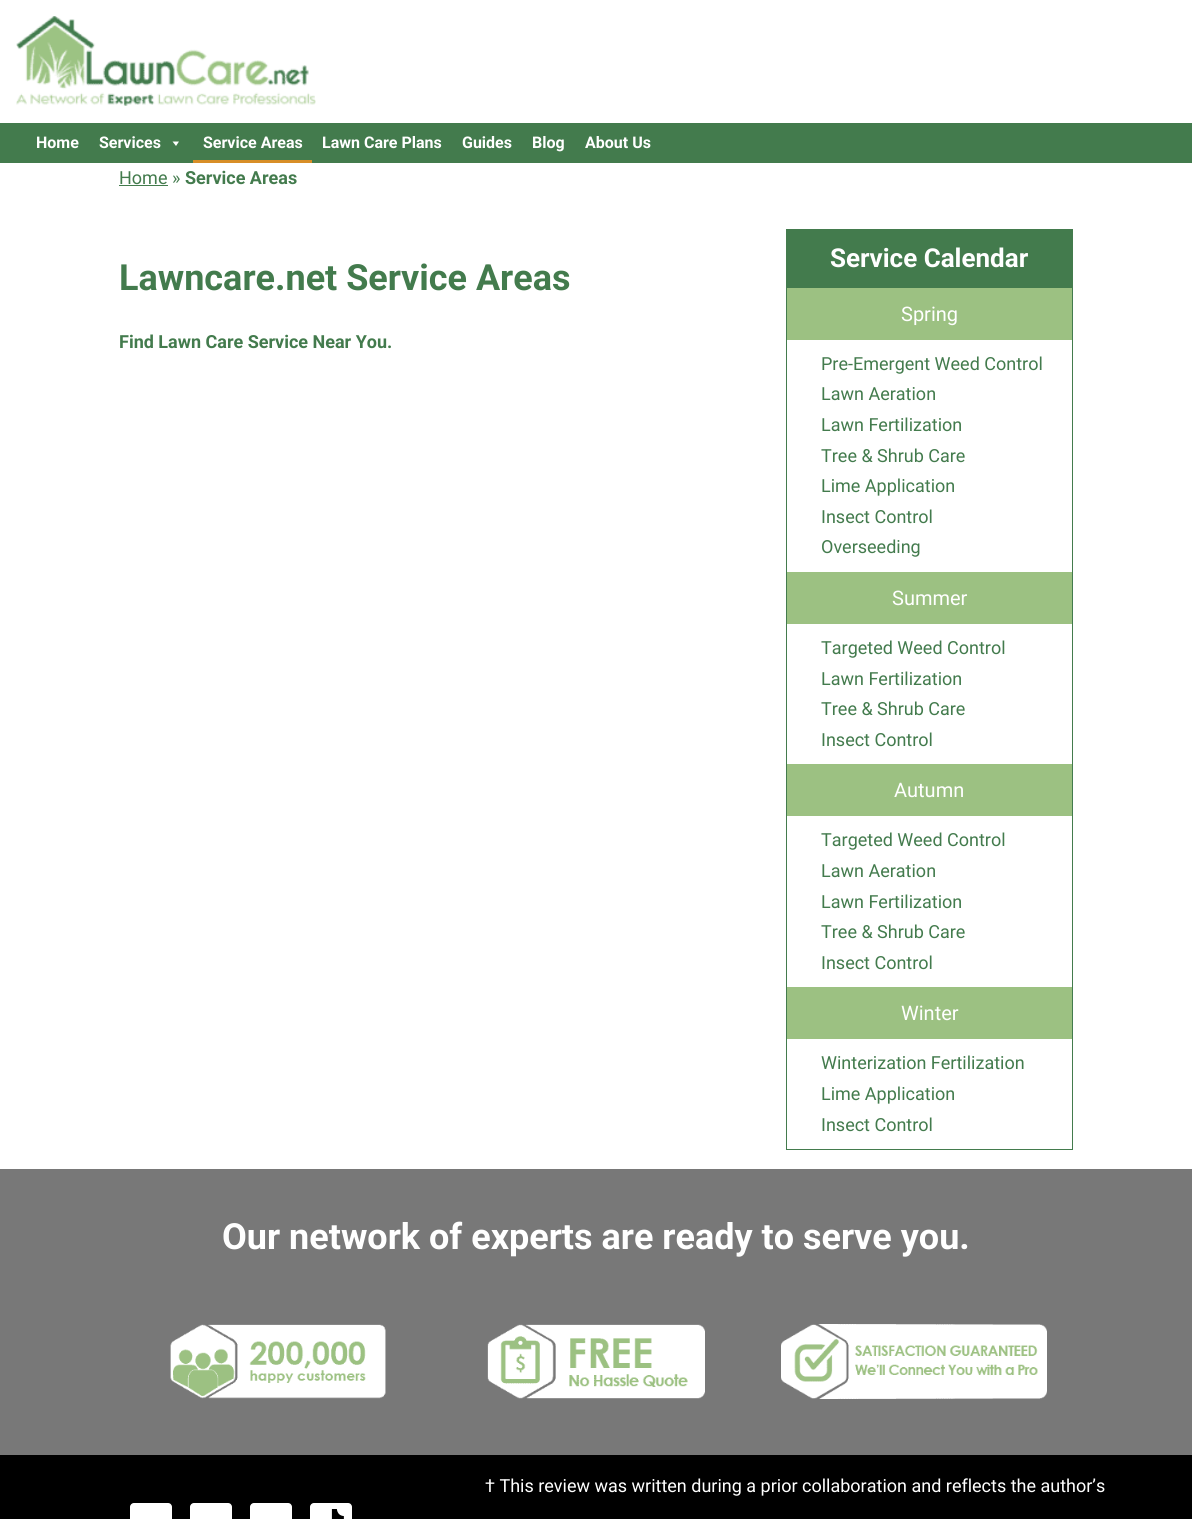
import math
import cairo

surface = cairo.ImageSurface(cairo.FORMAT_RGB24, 1192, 1519)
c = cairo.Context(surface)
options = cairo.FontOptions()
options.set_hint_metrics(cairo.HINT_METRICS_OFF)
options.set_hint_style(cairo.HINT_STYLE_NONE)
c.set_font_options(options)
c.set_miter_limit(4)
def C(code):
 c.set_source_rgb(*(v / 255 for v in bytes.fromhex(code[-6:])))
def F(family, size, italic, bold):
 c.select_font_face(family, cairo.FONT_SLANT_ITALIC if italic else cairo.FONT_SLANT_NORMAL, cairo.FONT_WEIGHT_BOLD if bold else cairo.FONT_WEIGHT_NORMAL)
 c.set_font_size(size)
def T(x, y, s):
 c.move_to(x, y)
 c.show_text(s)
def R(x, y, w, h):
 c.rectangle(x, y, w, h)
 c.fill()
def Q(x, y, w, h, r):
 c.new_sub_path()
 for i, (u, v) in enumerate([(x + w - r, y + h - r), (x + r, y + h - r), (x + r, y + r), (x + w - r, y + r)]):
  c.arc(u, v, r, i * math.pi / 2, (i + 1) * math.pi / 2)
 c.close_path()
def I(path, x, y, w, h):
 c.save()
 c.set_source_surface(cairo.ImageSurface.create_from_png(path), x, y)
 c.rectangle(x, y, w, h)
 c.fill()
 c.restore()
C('ffffff')
c.paint()
I('1.png',16,16,300,90)
C('437b4d')
R(0,123,1192,40)
F('Roboto',16,0,1)
C('ffffff')
T(36,148,'Home')
T(99,148,'Services')
c.new_path()
c.move_to(179,141.5)
c.line_to(176,146)
c.line_to(172.5,141.5)
c.close_path()
c.fill()
C('d88e28')
R(193,160,119,3)
C('ffffff')
T(203,148,'Service Areas')
T(322,148,'Lawn Care Plans')
T(462,148,'Guides')
T(532,148,'Blog')
T(585,148,'About Us')
F('Roboto',18,0,0)
C('437b4d')
T(119,184,'Home »')
R(119,185,49,1)
F('Roboto',18,0,1)
T(185,184,'Service Areas')
F('Roboto',36,0,1)
T(119,290,'Lawncare.net Service Areas')
F('Roboto',18,0,1)
T(119,348,'Find Lawn Care Service Near You.')
R(786,229,287,59)
F('Roboto',26,0,1)
C('ffffff')
T(830,267,'Service Calendar')
C('437b4d')
R(1072,287,1,863)
R(786,287,1,700)
C('9cc182')
R(787,288,285,52)
F('Roboto',20,0,0)
C('ffffff')
T(901,321,'Spring')
F('Roboto',18,0,0)
C('437b4d')
T(821,370,'Pre-Emergent Weed Control')
T(821,400,'Lawn Aeration')
T(821,431,'Lawn Fertilization')
T(821,462,'Tree & Shrub Care')
T(821,492,'Lime Application')
T(821,523,'Insect Control')
T(821,553,'Overseeding')
C('9cc182')
R(787,572,285,52)
F('Roboto',20,0,0)
C('ffffff')
T(892,605,'Summer')
F('Roboto',18,0,0)
C('437b4d')
T(821,654,'Targeted Weed Control')
T(821,685,'Lawn Fertilization')
T(821,715,'Tree & Shrub Care')
T(821,746,'Insect Control')
C('9cc182')
R(787,764,285,52)
F('Roboto',20,0,0)
C('ffffff')
T(894,797,'Autumn')
F('Roboto',18,0,0)
C('437b4d')
T(821,846,'Targeted Weed Control')
T(821,877,'Lawn Aeration')
T(821,908,'Lawn Fertilization')
T(821,938,'Tree & Shrub Care')
T(821,969,'Insect Control')
R(786,1149,287,1)
R(786,987,1,163)
C('9cc182')
R(787,987,285,52)
F('Roboto',20,0,0)
C('ffffff')
T(901,1020,'Winter')
F('Roboto',18,0,0)
C('437b4d')
T(821,1069,'Winterization Fertilization')
T(821,1100,'Lime Application')
T(821,1131,'Insect Control')
C('787878')
R(0,1169,1192,286)
F('Roboto',36,0,1)
C('ffffff')
T(222,1249,'Our network of experts are ready to serve you.')
I('2.png',170,1324,216,75)
I('3.png',487,1324,218,75)
I('4.png',781,1324,266,75)
C('000000')
R(0,1455,1192,64)
F('Roboto',18,0,0)
C('ffffff')
T(485,1492,'† This review was written during a prior collaboration and reflects the author’s')
Q(130,1503,42,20,4)
c.fill()
Q(190,1503,42,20,4)
c.fill()
Q(250,1503,42,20,4)
c.fill()
Q(310,1503,42,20,4)
c.fill()
I('5.png',331,1509,13,10)
surface.write_to_png('o.png')
